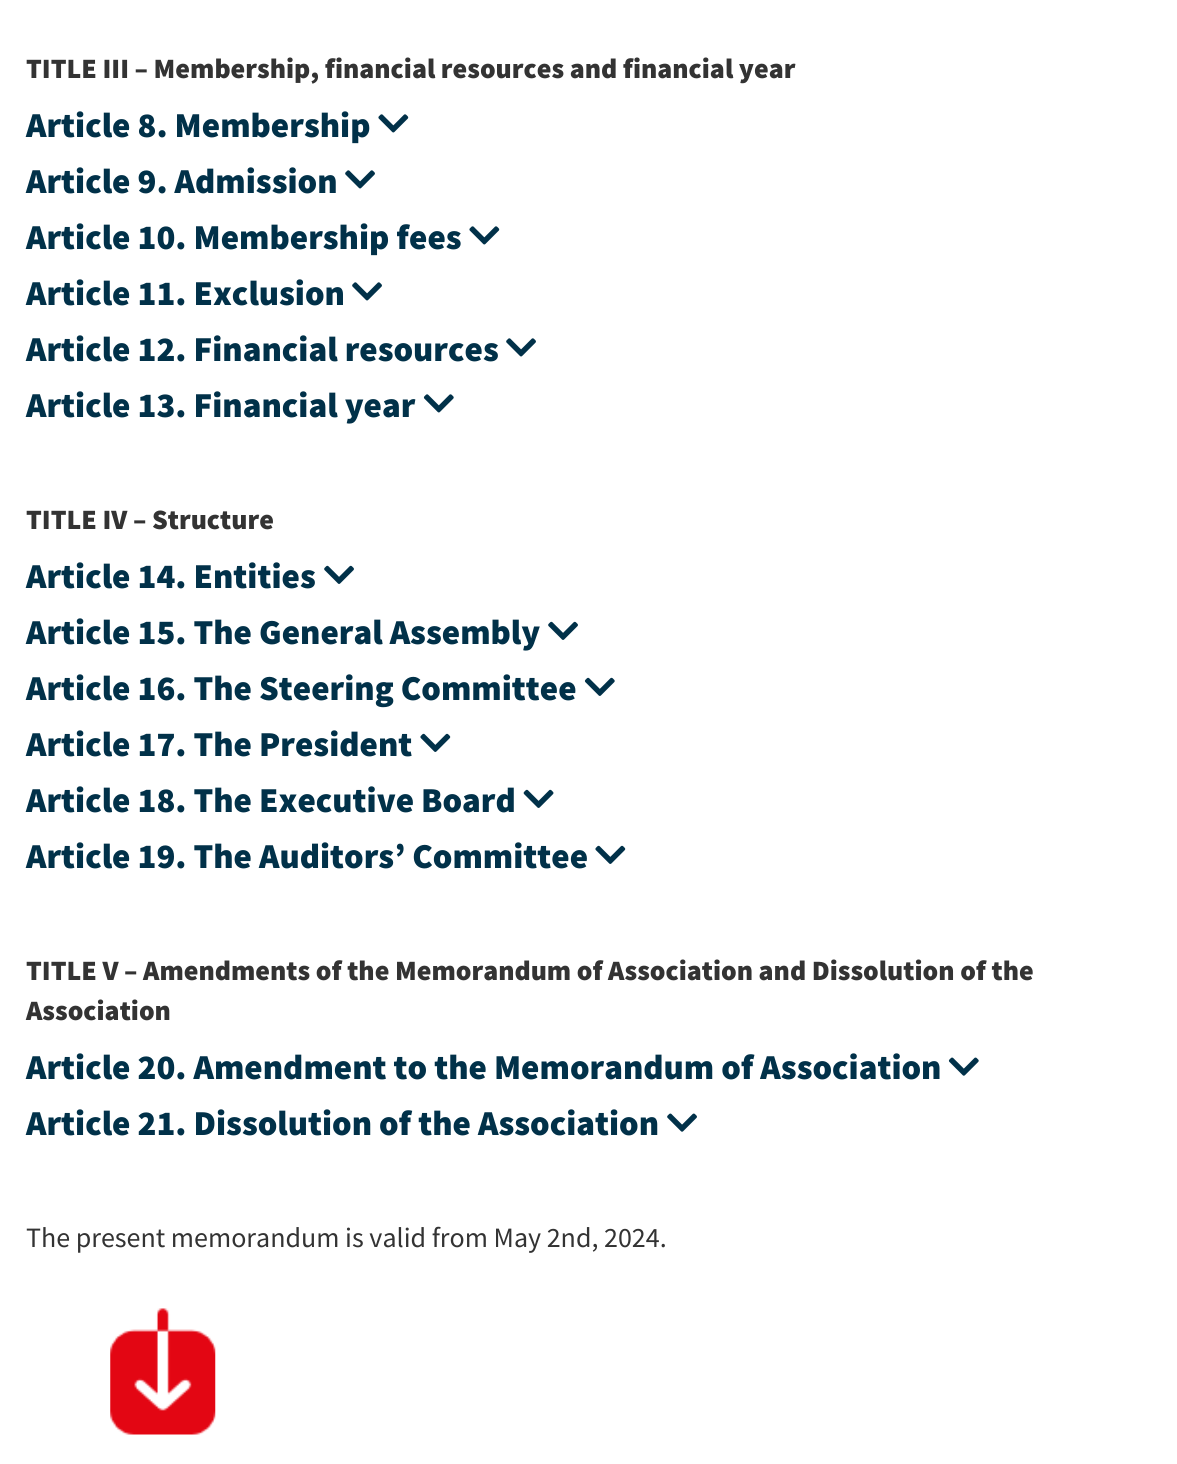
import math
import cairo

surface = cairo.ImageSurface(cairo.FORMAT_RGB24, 1177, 1464)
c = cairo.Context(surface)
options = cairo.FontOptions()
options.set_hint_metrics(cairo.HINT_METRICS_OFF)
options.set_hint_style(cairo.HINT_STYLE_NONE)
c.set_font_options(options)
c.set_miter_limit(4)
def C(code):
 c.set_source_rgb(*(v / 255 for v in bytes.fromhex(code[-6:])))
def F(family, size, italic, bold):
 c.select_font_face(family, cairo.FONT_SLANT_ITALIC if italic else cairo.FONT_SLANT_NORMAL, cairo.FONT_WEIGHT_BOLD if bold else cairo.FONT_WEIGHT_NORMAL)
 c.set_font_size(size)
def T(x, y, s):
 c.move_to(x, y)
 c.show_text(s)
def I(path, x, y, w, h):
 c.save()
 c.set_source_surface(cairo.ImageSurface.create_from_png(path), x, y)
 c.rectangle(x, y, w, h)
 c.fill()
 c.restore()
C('ffffff')
c.paint()
F('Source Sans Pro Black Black',28,0,0)
C('333333')
T(26,78,'TITLE III – Membership, financial resources and financial year')
F('Source Sans Pro Black Black',35,0,0)
C('013149')
T(26,137,'Article 8. Membership')
I('1.png',378,114,31,19)
T(26,193,'Article 9. Admission')
I('2.png',345,170,30,19)
T(26,249,'Article 10. Membership fees')
I('1.png',469,226,31,19)
T(26,305,'Article 11. Exclusion')
I('2.png',352,282,30,19)
T(26,361,'Article 12. Financial resources')
I('2.png',506,338,30,19)
T(26,417,'Article 13. Financial year')
I('3.png',423,394,31,19)
F('Source Sans Pro Black Black',28,0,0)
C('333333')
T(26,529,'TITLE IV – Structure')
F('Source Sans Pro Black Black',35,0,0)
C('013149')
T(26,588,'Article 14. Entities')
I('4.png',324,565,30,19)
T(26,644,'Article 15. The General Assembly')
I('4.png',548,621,30,19)
T(26,700,'Article 16. The Steering Committee')
I('5.png',584,677,31,19)
T(26,756,'Article 17. The President')
I('6.png',420,733,31,19)
T(26,812,'Article 18. The Executive Board')
I('7.png',523,789,31,19)
T(26,868,'Article 19. The Auditors’ Committee')
I('6.png',595,845,31,19)
F('Source Sans Pro Black Black',28,0,0)
C('333333')
T(26,980,'TITLE V – Amendments of the Memorandum of Association and Dissolution of the')
T(26,1020,'Association')
F('Source Sans Pro Black Black',35,0,0)
C('013149')
T(26,1079,'Article 20. Amendment to the Memorandum of Association')
I('8.png',948,1057,31,19)
T(26,1135,'Article 21. Dissolution of the Association')
I('9.png',667,1113,30,19)
F('Source Sans Pro',28,0,0)
C('333333')
T(26,1247,'The present memorandum is valid from May 2nd, 2024.')
I('10.png',110,1308,106,127)
surface.write_to_png('o.png')
